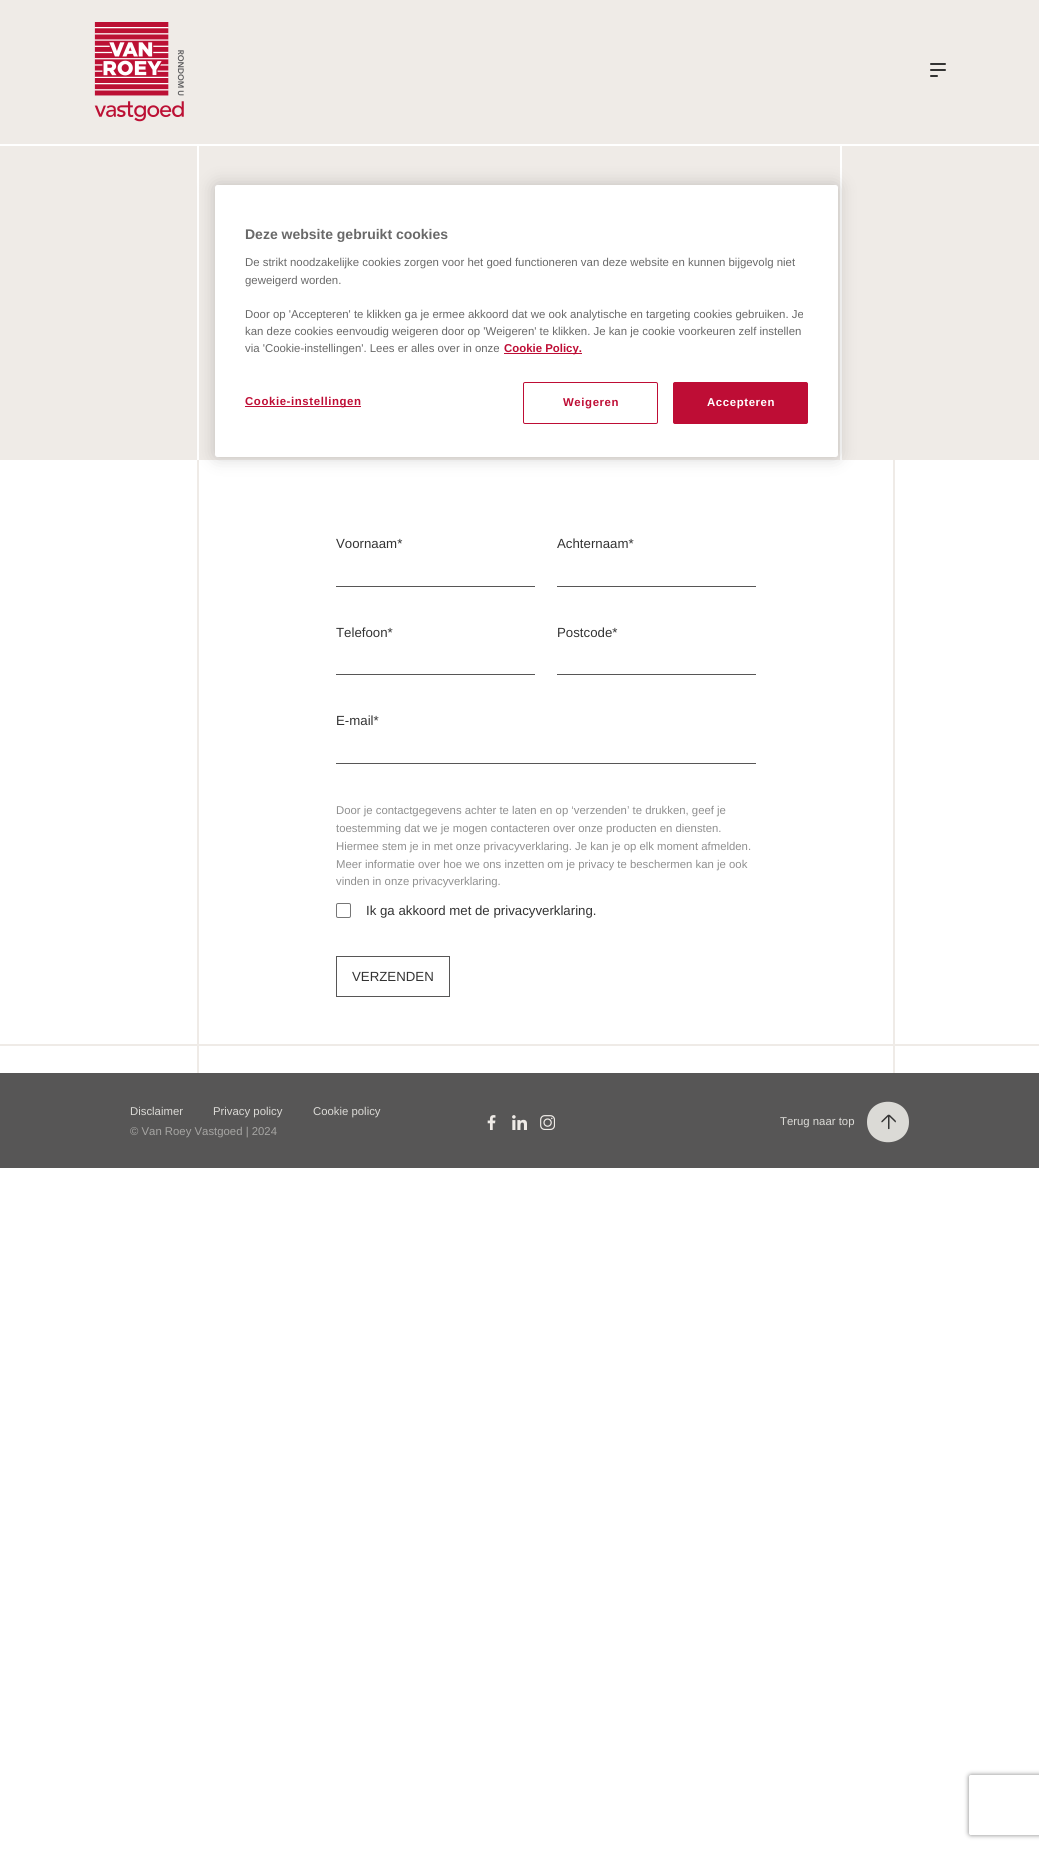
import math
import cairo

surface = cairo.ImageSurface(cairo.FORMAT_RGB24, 1039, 1849)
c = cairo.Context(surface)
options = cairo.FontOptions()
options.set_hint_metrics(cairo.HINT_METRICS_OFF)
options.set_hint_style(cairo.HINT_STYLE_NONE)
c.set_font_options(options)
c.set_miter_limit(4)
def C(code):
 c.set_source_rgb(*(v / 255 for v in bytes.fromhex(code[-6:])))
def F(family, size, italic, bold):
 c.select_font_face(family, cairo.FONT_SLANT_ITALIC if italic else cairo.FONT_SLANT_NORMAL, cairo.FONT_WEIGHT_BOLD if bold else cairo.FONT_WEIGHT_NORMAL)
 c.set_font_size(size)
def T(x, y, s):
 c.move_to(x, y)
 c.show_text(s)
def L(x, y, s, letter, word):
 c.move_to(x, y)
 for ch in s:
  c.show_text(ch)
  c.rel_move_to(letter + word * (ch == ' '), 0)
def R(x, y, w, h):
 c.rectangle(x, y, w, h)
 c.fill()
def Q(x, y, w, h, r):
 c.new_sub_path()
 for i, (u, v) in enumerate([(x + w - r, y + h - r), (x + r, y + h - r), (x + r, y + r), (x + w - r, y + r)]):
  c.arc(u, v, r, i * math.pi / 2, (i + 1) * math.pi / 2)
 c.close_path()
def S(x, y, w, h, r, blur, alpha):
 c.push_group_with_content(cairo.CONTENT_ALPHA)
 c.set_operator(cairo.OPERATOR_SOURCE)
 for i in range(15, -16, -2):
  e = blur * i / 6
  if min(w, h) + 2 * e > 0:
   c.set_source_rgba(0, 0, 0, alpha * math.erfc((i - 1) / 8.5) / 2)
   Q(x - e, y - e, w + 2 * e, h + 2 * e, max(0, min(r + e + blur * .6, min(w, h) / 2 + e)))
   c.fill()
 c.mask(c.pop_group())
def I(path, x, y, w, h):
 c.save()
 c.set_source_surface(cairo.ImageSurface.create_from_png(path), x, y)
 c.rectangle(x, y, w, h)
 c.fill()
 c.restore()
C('ffffff')
c.paint()
C('efebe7')
R(0,0,1039,144)
I('1.png',94,22,90,100)
I('2.png',930,63,16,14)
R(0,146,1039,314)
C('ffffff')
R(197,146,2,314)
R(840,146,2,314)
C('efebe7')
R(197,460,2,613)
C('000000')
S(215,185,623,272,2.5,9,.2)
C('ffffff')
Q(215,185,623,272,2.5)
c.fill()
F('Liberation Sans',14,0,1)
C('696969')
T(245,239,'Deze website gebruikt cookies')
F('Liberation Sans',11.4,0,0)
T(245,266,'De strikt noodzakelijke cookies zorgen voor het goed functioneren van deze website en kunnen bijgevolg niet')
T(245,284,'geweigerd worden.')
T(245,318,'Door op \'Accepteren\' te klikken ga je ermee akkoord dat we ook analytische en targeting cookies gebruiken. Je')
T(245,335,'kan deze cookies eenvoudig weigeren door op \'Weigeren\' te klikken. Je kan je cookie voorkeuren zelf instellen')
T(245,352,'via \'Cookie-instellingen\'. Lees er alles over in onze')
C('be0d35')
R(504,353,78,1)
F('Liberation Sans',11.4,0,1)
T(504,352,'Cookie Policy.')
R(245,406,116,1)
L(245,405,'Cookie-instellingen',.6,0)
Q(523.5,382.5,134,41,1.5)
c.set_line_width(1)
c.stroke()
L(563,406,'Weigeren',.6,0)
Q(673.5,382.5,134,41,1.5)
c.fill_preserve()
c.stroke()
C('ffffff')
L(707,406,'Accepteren',.6,0)
F('Liberation Sans',13.25,0,0)
C('333333')
T(336,548,'Voornaam*')
C('575656')
R(336,586,199,1)
C('333333')
T(557,548,'Achternaam*')
C('575656')
R(557,586,199,1)
C('333333')
T(336,637,'Telefoon*')
C('575656')
R(336,674,199,1)
C('333333')
T(557,637,'Postcode*')
C('575656')
R(557,674,199,1)
C('333333')
T(336,725,'E-mail*')
C('575656')
R(336,763,420,1)
F('Liberation Sans',11.35,0,0)
C('909090')
T(336,814,'Door je contactgegevens achter te laten en op ‘verzenden’ te drukken, geef je')
T(336,832,'toestemming dat we je mogen contacteren over onze producten en diensten.')
T(336,850,'Hiermee stem je in met onze privacyverklaring. Je kan je op elk moment afmelden.')
T(336,868,'Meer informatie over hoe we ons inzetten om je privacy te beschermen kan je ook')
T(336,885,'vinden in onze privacyverklaring.')
Q(336.5,903.5,14,14,1.5)
C('767676')
c.stroke()
F('Liberation Sans',13.25,0,0)
C('333333')
T(366,915,'Ik ga akkoord met de privacyverklaring.')
c.rectangle(336.5,956.5,113,40)
C('575656')
c.stroke()
C('333333')
T(352,981,'VERZENDEN')
C('efebe7')
R(893,460,2,613)
R(0,1044,1039,2)
C('575656')
R(0,1073,1039,95)
F('Liberation Sans',11.35,0,0)
C('dbdad6')
T(130,1115,'Disclaimer')
T(213,1115,'Privacy policy')
T(313,1115,'Cookie policy')
C('a6a5a3')
T(130,1135,'© Van Roey Vastgoed | 2024')
I('3.png',487,1115,9,15)
I('4.png',512,1115,15,15)
I('5.png',540,1115,15,15)
C('dbdad6')
T(780,1125,'Terug naar top')
c.new_path()
c.move_to(867,1122)
c.curve_to(867,1095,909,1095,909,1122)
c.curve_to(909,1149,867,1149,867,1122)
c.close_path()
c.fill()
I('6.png',881,1114,15,16)
c.save()
c.set_fill_rule(cairo.FILL_RULE_EVEN_ODD)
c.new_path()
c.move_to(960,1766)
c.line_to(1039,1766)
c.line_to(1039,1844)
c.line_to(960,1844)
c.close_path()
c.move_to(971,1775)
c.line_to(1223,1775)
c.curve_to(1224,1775,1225,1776,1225,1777)
c.line_to(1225,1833)
c.curve_to(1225,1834,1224,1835,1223,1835)
c.line_to(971,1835)
c.curve_to(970,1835,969,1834,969,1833)
c.line_to(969,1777)
c.curve_to(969,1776,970,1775,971,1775)
c.close_path()
c.clip()
C('808080')
S(969,1775,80,60,2,2.5,1)
c.restore()
surface.write_to_png('o.png')
